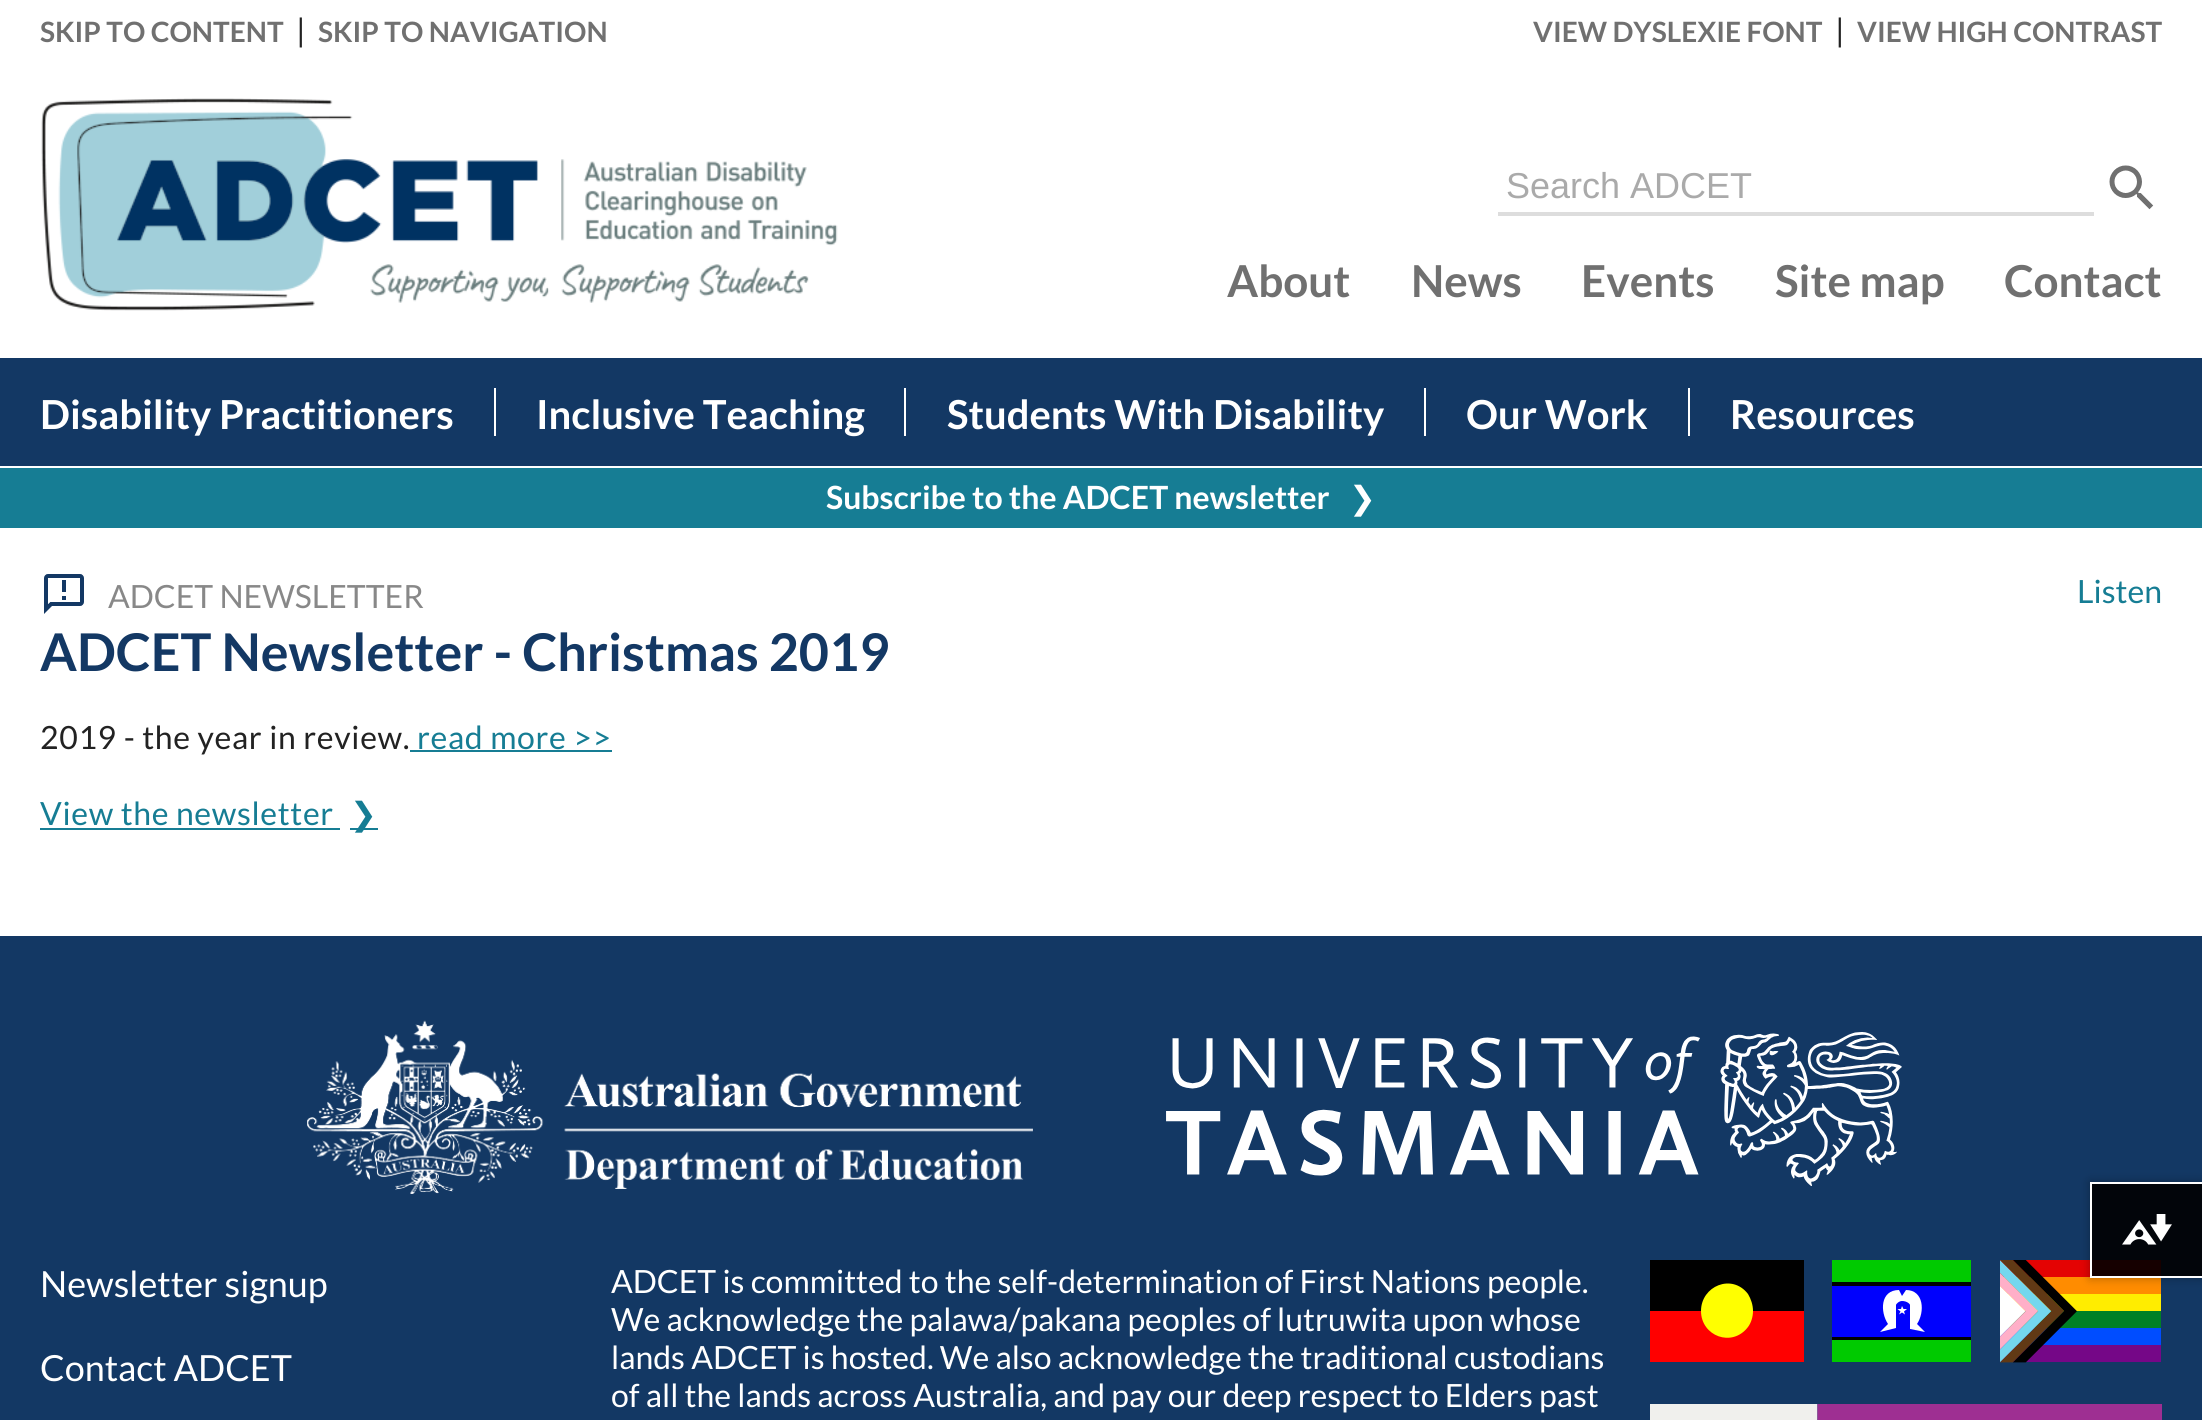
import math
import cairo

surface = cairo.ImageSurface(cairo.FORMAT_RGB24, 2202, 1420)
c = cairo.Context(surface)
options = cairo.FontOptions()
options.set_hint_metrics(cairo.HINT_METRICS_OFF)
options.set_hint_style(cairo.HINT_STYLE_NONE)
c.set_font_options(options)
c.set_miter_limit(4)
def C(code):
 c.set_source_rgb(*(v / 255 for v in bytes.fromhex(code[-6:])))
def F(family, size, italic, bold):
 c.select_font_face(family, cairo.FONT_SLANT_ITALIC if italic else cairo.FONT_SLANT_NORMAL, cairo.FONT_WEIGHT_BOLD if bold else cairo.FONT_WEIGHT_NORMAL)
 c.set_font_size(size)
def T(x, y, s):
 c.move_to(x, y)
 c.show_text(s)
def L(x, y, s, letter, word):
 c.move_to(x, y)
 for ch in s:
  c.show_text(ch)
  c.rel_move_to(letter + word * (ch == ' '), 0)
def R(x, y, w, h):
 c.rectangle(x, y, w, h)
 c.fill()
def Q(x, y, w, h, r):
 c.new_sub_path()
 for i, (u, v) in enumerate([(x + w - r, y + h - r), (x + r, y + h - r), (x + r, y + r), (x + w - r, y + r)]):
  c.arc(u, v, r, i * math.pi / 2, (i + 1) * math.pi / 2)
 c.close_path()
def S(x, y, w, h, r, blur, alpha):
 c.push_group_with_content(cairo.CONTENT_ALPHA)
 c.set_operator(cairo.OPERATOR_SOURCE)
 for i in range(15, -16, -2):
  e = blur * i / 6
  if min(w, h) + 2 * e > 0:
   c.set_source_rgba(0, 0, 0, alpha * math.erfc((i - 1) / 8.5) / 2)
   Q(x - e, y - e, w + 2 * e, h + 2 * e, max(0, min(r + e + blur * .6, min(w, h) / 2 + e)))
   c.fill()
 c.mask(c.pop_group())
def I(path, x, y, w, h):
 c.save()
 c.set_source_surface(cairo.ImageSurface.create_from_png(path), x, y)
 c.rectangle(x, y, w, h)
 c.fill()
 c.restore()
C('ffffff')
c.paint()
F('Lato',28,0,1)
C('707070')
T(40,42,'SKIP TO CONTENT')
F('Lato',32,0,0)
C('222222')
T(296,42,'|')
F('Lato',28,0,1)
C('707070')
T(318,42,'SKIP TO NAVIGATION')
T(1533,42,'VIEW DYSLEXIE FONT')
F('Lato',32,0,0)
C('222222')
T(1835,42,'|')
F('Lato',28,0,1)
C('707070')
T(1857,42,'VIEW HIGH CONTRAST')
I('1.png',41,98,797,213)
C('dddddd')
R(1498,212,596,4)
F('Liberation Sans',36,0,0)
C('aaaaaa')
T(1506,198,'Search ADCET')
I('2.png',2109,165,45,45)
C('133864')
R(0,358,2202,108)
F('Lato',44,0,1)
C('707070')
T(1227,297,'About')
T(1411,297,'News')
T(1581,297,'Events')
T(1775,297,'Site map')
T(2004,297,'Contact')
F('Lato',40,0,1)
C('ffffff')
T(40,429,'Disability Practitioners')
R(494,388,2,48)
T(536,429,'Inclusive Teaching')
R(904,388,2,48)
T(947,429,'Students With Disability')
R(1424,388,2,48)
T(1466,429,'Our Work')
R(1688,388,2,48)
T(1730,429,'Resources')
C('167d94')
R(0,468,2202,60)
F('Lato',32,0,1)
C('ffffff')
T(826,509,'Subscribe to the ADCET newsletter')
F('DejaVu Sans',32,0,0)
T(1349,509,'❯')
I('3.png',44,574,40,40)
F('Lato',32,0,0)
C('888888')
T(108,608,'ADCET NEWSLETTER')
C('167d94')
T(2077,603,'Listen')
F('Lato',52,0,1)
C('133864')
T(40,671,'ADCET Newsletter - Christmas 2019')
F('Lato',32,0,0)
C('222222')
L(40,749,'2019 - the year in review.',.65,0)
C('167d94')
L(417,749,'read more >>',.65,0)
R(410,750,202,2)
L(40,825,'View the newsletter',.65,0)
R(40,828,300,2)
R(350,828,28,2)
F('DejaVu Sans',32,0,0)
L(350,825,'❯',.65,0)
C('133864')
R(0,936,2202,484)
I('7.png',2000,1260,161,103)
c.save()
c.set_fill_rule(cairo.FILL_RULE_EVEN_ODD)
c.new_path()
c.move_to(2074,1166)
c.line_to(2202,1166)
c.line_to(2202,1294)
c.line_to(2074,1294)
c.close_path()
c.move_to(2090,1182)
c.line_to(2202,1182)
c.line_to(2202,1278)
c.line_to(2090,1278)
c.close_path()
c.clip()
C('000000')
S(2090,1182,112,96,0,5,.3)
c.restore()
c.set_source_rgba(0,0,0,0.9)
R(2092,1184,110,92)
C('ffffff')
R(2090,1182,112,2)
R(2090,1276,112,2)
R(2090,1182,2,96)
I('4.png',2122,1214,50,31)
I('5.png',307,1020,726,174)
I('6.png',1166,1032,736,154)
F('Lato',36,0,0)
T(40,1297,'Newsletter signup')
T(40,1381,'Contact ADCET')
F('Lato',32,0,0)
T(611,1293,'ADCET is committed to the self-determination of First Nations people.')
T(611,1331,'We acknowledge the palawa/pakana peoples of lutruwita upon whose')
T(611,1369,'lands ADCET is hosted. We also acknowledge the traditional custodians')
T(611,1407,'of all the lands across Australia, and pay our deep respect to Elders past')
C('000000')
R(1650,1260,154,51)
C('ff0000')
R(1650,1311,154,51)
C('ffff00')
c.set_fill_rule(cairo.FILL_RULE_EVEN_ODD)
c.new_path()
c.move_to(1753,1311)
c.curve_to(1753,1317,1751,1323,1748,1327)
c.curve_to(1732,1348,1701,1336,1701,1311)
c.curve_to(1701,1286,1732,1273,1748,1294)
c.curve_to(1751,1299,1753,1305,1753,1311)
c.close_path()
c.fill()
C('00ca00')
R(1832,1260,139,102)
C('000100')
R(1832,1282,139,58)
C('0001fd')
R(1832,1286,139,51)
C('ffffff')
c.new_path()
c.move_to(1880,1332)
c.line_to(1888,1324)
c.curve_to(1880,1312,1880,1290,1899,1290)
c.line_to(1902,1296)
c.line_to(1906,1290)
c.curve_to(1924,1290,1925,1312,1917,1324)
c.line_to(1925,1332)
c.line_to(1910,1329)
c.line_to(1910,1305)
c.curve_to(1910,1304,1907,1301,1902,1301)
c.curve_to(1899,1301,1896,1304,1896,1305)
c.line_to(1896,1328)
c.close_path()
c.fill()
c.new_path()
c.move_to(1899,1314.5)
c.line_to(1900.5,1311.5)
c.line_to(1897.5,1309)
c.line_to(1901,1309)
c.line_to(1902,1306)
c.line_to(1903.5,1309)
c.line_to(1907,1309)
c.line_to(1904,1311.5)
c.line_to(1905,1314.5)
c.line_to(1902,1312.5)
c.close_path()
c.fill()
I('8.png',1650,1404,512,16)
surface.write_to_png('o.png')
